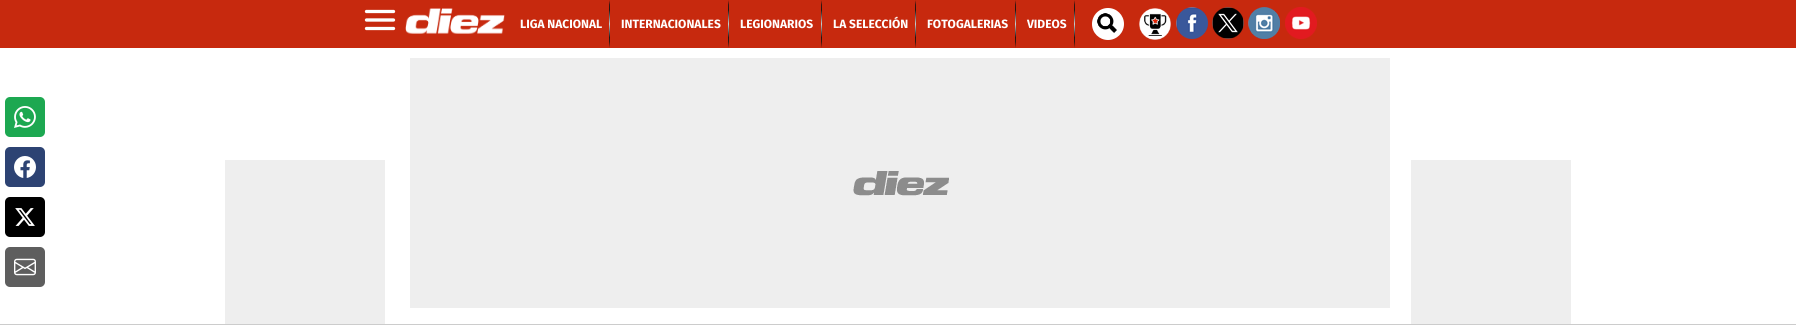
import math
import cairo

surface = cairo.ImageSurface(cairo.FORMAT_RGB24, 1796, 335)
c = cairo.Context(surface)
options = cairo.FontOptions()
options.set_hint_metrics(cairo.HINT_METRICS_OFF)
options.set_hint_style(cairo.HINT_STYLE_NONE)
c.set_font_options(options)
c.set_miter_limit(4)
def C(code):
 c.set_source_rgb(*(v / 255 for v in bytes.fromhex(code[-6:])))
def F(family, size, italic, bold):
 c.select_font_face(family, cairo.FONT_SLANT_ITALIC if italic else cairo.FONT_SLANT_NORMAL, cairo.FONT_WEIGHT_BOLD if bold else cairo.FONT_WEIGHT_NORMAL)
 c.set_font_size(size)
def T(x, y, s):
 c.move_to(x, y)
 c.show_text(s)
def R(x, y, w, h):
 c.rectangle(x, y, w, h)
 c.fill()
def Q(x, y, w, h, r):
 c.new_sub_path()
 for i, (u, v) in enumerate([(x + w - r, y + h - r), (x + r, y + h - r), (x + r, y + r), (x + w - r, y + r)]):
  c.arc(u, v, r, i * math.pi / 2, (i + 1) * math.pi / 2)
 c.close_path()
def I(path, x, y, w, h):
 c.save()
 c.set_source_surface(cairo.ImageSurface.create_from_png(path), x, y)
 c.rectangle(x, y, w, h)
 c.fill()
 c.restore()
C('ffffff')
c.paint()
C('c7290e')
R(0,0,1796,48)
c.new_path()
c.move_to(366.5,11.5)
c.line_to(393.5,11.5)
c.move_to(366.5,20)
c.line_to(393.5,20)
c.move_to(366.5,28.5)
c.line_to(393.5,28.5)
C('ffffff')
c.set_line_width(3.3)
c.set_line_cap(cairo.LINE_CAP_ROUND)
c.stroke()
I('1.png',405,8,100,26)
F('Fira Sans',12,0,1)
T(520,28,'LIGA NACIONAL')
gradient = cairo.LinearGradient(610,0,610,48)
gradient.add_color_stop_rgba(0,0.78,0.161,0.055,1)
gradient.add_color_stop_rgba(.1,0.208,0.086,0.063,1)
gradient.add_color_stop_rgba(.21,0.125,0.075,0.067,1)
gradient.add_color_stop_rgba(.29,0.271,0.271,0.271,1)
gradient.add_color_stop_rgba(.5,0.8,0.8,0.8,1)
gradient.add_color_stop_rgba(.69,0.302,0.302,0.302,1)
gradient.add_color_stop_rgba(.78,0.137,0.075,0.067,1)
gradient.add_color_stop_rgba(.87,0.208,0.086,0.063,1)
gradient.add_color_stop_rgba(1,0.78,0.161,0.055,1)
c.set_source(gradient)
R(609,0,1,48)
C('ffffff')
T(621,28,'INTERNACIONALES')
gradient = cairo.LinearGradient(729,0,729,48)
gradient.add_color_stop_rgba(0,0.78,0.161,0.055,1)
gradient.add_color_stop_rgba(.1,0.208,0.086,0.063,1)
gradient.add_color_stop_rgba(.21,0.125,0.075,0.067,1)
gradient.add_color_stop_rgba(.29,0.271,0.271,0.271,1)
gradient.add_color_stop_rgba(.5,0.8,0.8,0.8,1)
gradient.add_color_stop_rgba(.69,0.302,0.302,0.302,1)
gradient.add_color_stop_rgba(.78,0.137,0.075,0.067,1)
gradient.add_color_stop_rgba(.87,0.208,0.086,0.063,1)
gradient.add_color_stop_rgba(1,0.78,0.161,0.055,1)
c.set_source(gradient)
R(728,0,1,48)
C('ffffff')
T(740,28,'LEGIONARIOS')
gradient = cairo.LinearGradient(822,0,822,48)
gradient.add_color_stop_rgba(0,0.78,0.161,0.055,1)
gradient.add_color_stop_rgba(.1,0.208,0.086,0.063,1)
gradient.add_color_stop_rgba(.21,0.125,0.075,0.067,1)
gradient.add_color_stop_rgba(.29,0.271,0.271,0.271,1)
gradient.add_color_stop_rgba(.5,0.8,0.8,0.8,1)
gradient.add_color_stop_rgba(.69,0.302,0.302,0.302,1)
gradient.add_color_stop_rgba(.78,0.137,0.075,0.067,1)
gradient.add_color_stop_rgba(.87,0.208,0.086,0.063,1)
gradient.add_color_stop_rgba(1,0.78,0.161,0.055,1)
c.set_source(gradient)
R(821,0,1,48)
C('ffffff')
T(833,28,'LA SELECCIÓN')
gradient = cairo.LinearGradient(916,0,916,48)
gradient.add_color_stop_rgba(0,0.78,0.161,0.055,1)
gradient.add_color_stop_rgba(.1,0.208,0.086,0.063,1)
gradient.add_color_stop_rgba(.21,0.125,0.075,0.067,1)
gradient.add_color_stop_rgba(.29,0.271,0.271,0.271,1)
gradient.add_color_stop_rgba(.5,0.8,0.8,0.8,1)
gradient.add_color_stop_rgba(.69,0.302,0.302,0.302,1)
gradient.add_color_stop_rgba(.78,0.137,0.075,0.067,1)
gradient.add_color_stop_rgba(.87,0.208,0.086,0.063,1)
gradient.add_color_stop_rgba(1,0.78,0.161,0.055,1)
c.set_source(gradient)
R(915,0,1,48)
C('ffffff')
T(927,28,'FOTOGALERIAS')
gradient = cairo.LinearGradient(1016,0,1016,48)
gradient.add_color_stop_rgba(0,0.78,0.161,0.055,1)
gradient.add_color_stop_rgba(.1,0.208,0.086,0.063,1)
gradient.add_color_stop_rgba(.21,0.125,0.075,0.067,1)
gradient.add_color_stop_rgba(.29,0.271,0.271,0.271,1)
gradient.add_color_stop_rgba(.5,0.8,0.8,0.8,1)
gradient.add_color_stop_rgba(.69,0.302,0.302,0.302,1)
gradient.add_color_stop_rgba(.78,0.137,0.075,0.067,1)
gradient.add_color_stop_rgba(.87,0.208,0.086,0.063,1)
gradient.add_color_stop_rgba(1,0.78,0.161,0.055,1)
c.set_source(gradient)
R(1015,0,1,48)
C('ffffff')
T(1027,28,'VIDEOS')
gradient = cairo.LinearGradient(1075,0,1075,48)
gradient.add_color_stop_rgba(0,0.78,0.161,0.055,1)
gradient.add_color_stop_rgba(.1,0.208,0.086,0.063,1)
gradient.add_color_stop_rgba(.21,0.125,0.075,0.067,1)
gradient.add_color_stop_rgba(.29,0.271,0.271,0.271,1)
gradient.add_color_stop_rgba(.5,0.8,0.8,0.8,1)
gradient.add_color_stop_rgba(.69,0.302,0.302,0.302,1)
gradient.add_color_stop_rgba(.78,0.137,0.075,0.067,1)
gradient.add_color_stop_rgba(.87,0.208,0.086,0.063,1)
gradient.add_color_stop_rgba(1,0.78,0.161,0.055,1)
c.set_source(gradient)
R(1074,0,1,48)
C('ffffff')
c.new_path()
c.arc(1108,24,16,0,2 * math.pi)
c.fill()
I('2.png',1097,13,20,20)
I('3.png',1139,8,32,32)
I('4.png',1176,7,32,32)
I('5.png',1212,7,32,32)
I('6.png',1248,7,32,32)
I('7.png',1285,7,32,32)
C('1da851')
Q(5,97,40,40,5)
c.fill()
I('8.png',14,106,22,22)
C('2d4373')
Q(5,147,40,40,5)
c.fill()
I('9.png',14,156,22,22)
C('000000')
Q(5,197,40,40,5)
c.fill()
I('10.png',15,208,20,18)
C('5e5e5e')
Q(5,247,40,40,5)
c.fill()
I('11.png',14,258,22,18)
C('eeeeee')
R(225,160,160,164)
R(410,58,980,250)
I('12.png',853,171,96,25)
R(1411,160,160,164)
C('cccccc')
R(0,324,1796,1)
surface.write_to_png('o.png')
